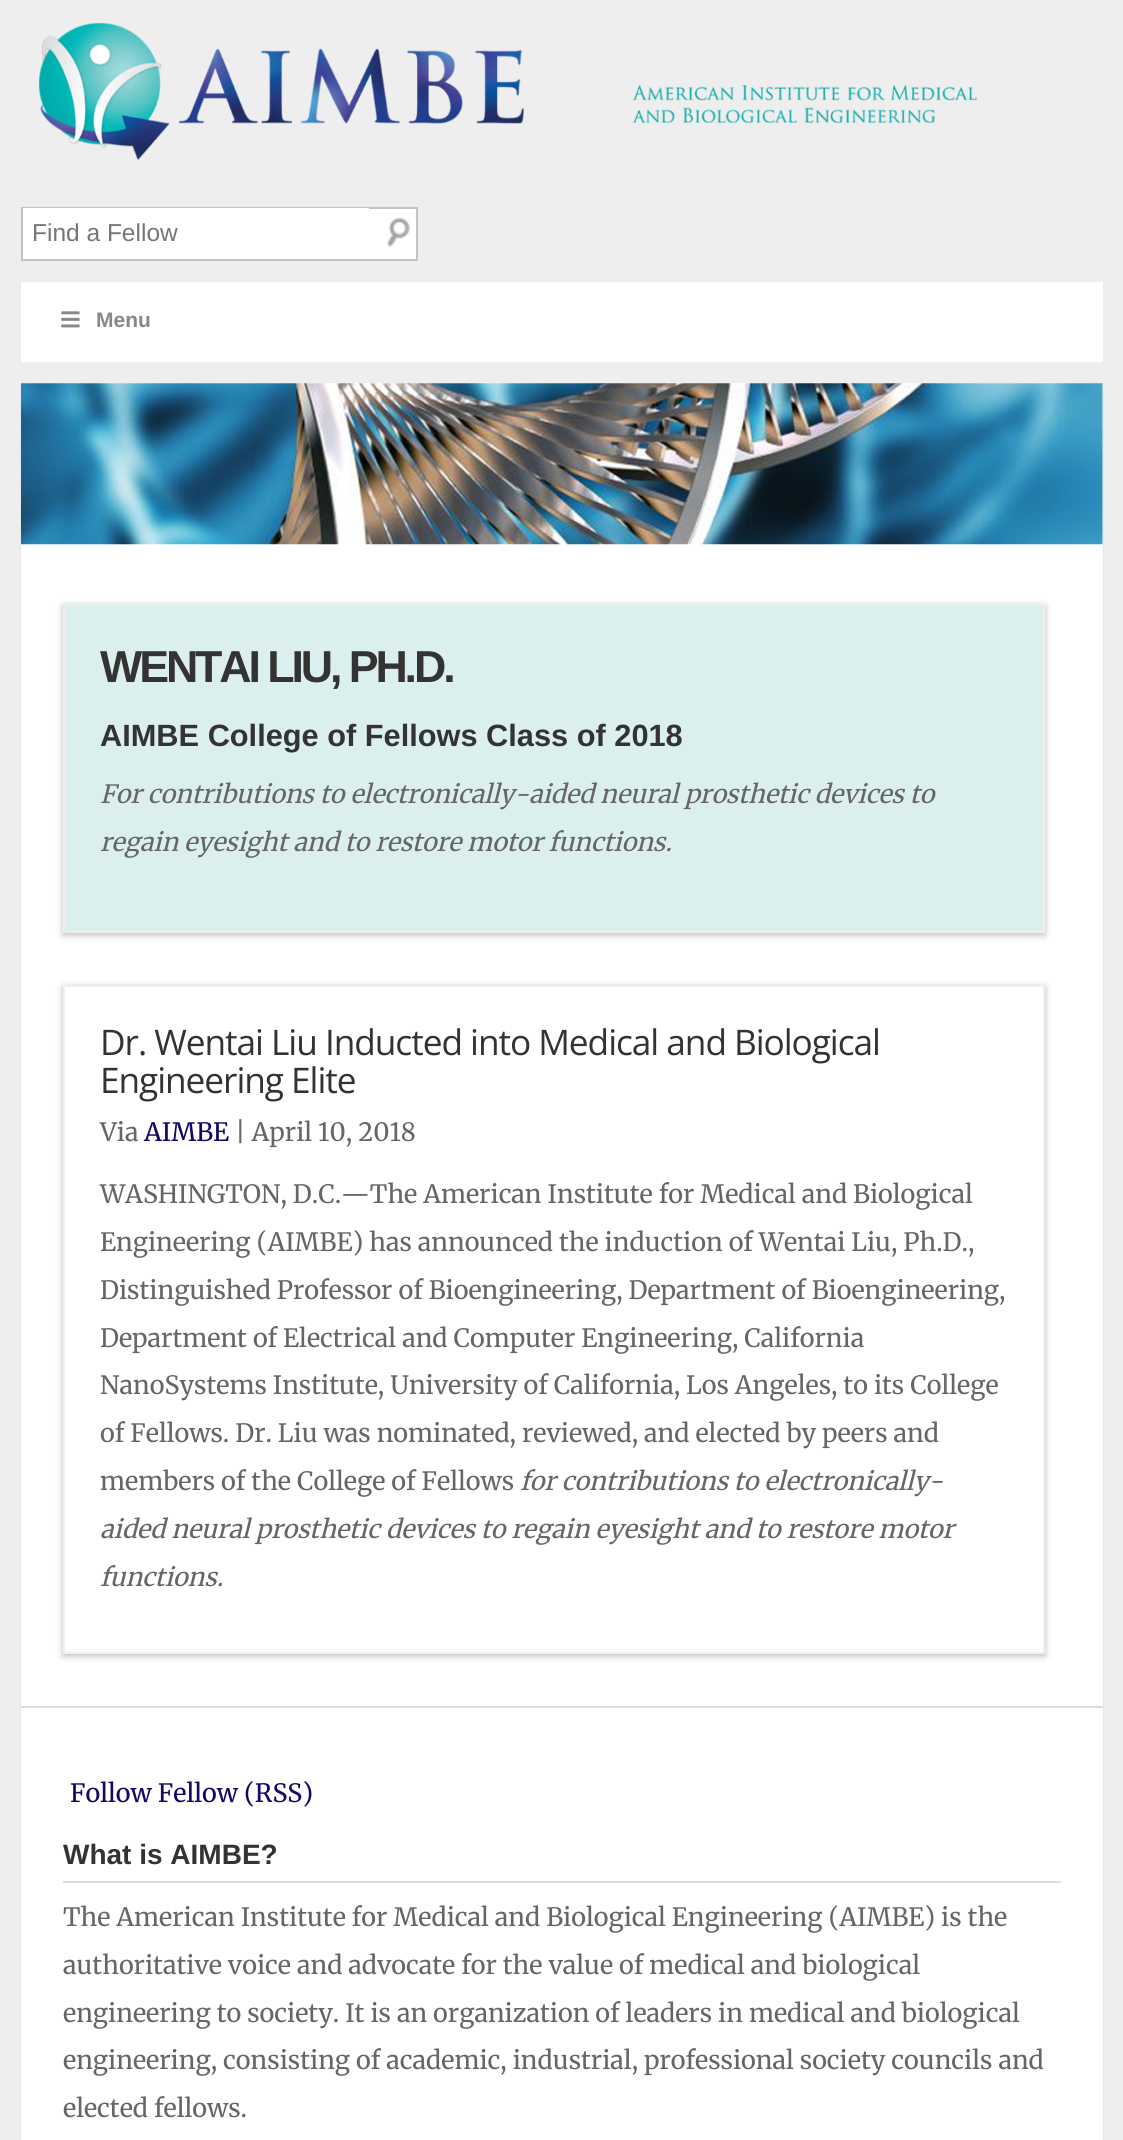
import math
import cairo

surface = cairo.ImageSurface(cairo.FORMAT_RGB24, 1123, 2140)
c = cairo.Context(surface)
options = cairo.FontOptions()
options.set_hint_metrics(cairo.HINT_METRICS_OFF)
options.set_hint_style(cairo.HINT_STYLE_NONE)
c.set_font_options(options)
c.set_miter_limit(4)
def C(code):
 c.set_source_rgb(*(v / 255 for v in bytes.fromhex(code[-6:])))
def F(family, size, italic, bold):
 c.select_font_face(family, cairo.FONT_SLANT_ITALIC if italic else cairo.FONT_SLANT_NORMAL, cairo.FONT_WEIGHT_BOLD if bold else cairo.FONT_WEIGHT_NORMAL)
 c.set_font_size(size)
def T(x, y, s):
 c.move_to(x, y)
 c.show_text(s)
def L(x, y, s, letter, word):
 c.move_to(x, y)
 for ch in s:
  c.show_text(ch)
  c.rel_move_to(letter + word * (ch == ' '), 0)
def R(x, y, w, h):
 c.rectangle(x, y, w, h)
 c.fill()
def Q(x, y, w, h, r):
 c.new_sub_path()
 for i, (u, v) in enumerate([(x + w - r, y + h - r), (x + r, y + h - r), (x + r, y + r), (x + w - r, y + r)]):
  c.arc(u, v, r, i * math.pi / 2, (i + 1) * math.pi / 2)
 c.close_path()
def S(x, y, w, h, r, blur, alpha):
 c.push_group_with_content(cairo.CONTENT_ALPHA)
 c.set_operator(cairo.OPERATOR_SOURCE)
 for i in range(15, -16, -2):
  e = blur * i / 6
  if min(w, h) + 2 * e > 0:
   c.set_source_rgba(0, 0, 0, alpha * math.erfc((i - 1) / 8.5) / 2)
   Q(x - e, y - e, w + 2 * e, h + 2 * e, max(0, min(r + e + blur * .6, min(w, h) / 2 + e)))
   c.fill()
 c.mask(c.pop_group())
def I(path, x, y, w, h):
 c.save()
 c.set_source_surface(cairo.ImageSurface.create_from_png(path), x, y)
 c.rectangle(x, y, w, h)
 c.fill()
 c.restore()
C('eeeeee')
c.paint()
I('1.png',38,22,939,138)
C('ffffff')
R(369,209,47,50)
c.rectangle(22,208,395,52)
C('c2c2c2')
c.stroke()
C('ffffff')
R(23,208,346,51)
F('Liberation Sans',24.5,0,0)
C('757575')
T(32,241,'Find a Fellow')
I('2.png',386,217,24,31)
C('ffffff')
R(21,282,1082,80)
I('3.png',61,311,19,17)
F('Liberation Sans',21,0,1)
C('888888')
T(96,327,'Menu')
C('000000')
S(21,385,1082,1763,5,1,.08)
C('ffffff')
Q(21,383,1082,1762,5)
c.fill()
I('4.png',21,383,1082,162)
C('000000')
S(63,606,982,329,0,3.5,.27)
C('dbf0ee')
c.rectangle(64,605,980,327)
c.fill_preserve()
C('efefef')
c.stroke()
F('Liberation Sans',44.75,0,1)
C('333333')
L(100,682,'WENTAI LIU, PH.D.',-3.1,0)
F('Liberation Sans',30.75,0,1)
T(100,746,'AIMBE College of Fellows Class of 2018')
F('Merriweather',25.2,1,0)
C('666666')
T(100,803,'For contributions to electronically-aided neural prosthetic devices to')
T(100,851,'regain eyesight and to restore motor functions.')
C('000000')
S(63,987,982,669,0,3.5,.27)
C('ffffff')
c.rectangle(64,986,980,667)
c.fill_preserve()
C('efefef')
c.stroke()
F('Open Sans',35.25,0,0)
C('333333')
L(100,1055,'Dr. Wentai Liu Inducted into Medical and Biological',-1.05,0)
L(100,1093,'Engineering Elite',-1.05,0)
F('Merriweather',25.2,0,0)
C('666666')
T(100,1141,'Via')
C('110867')
T(144,1141,'AIMBE')
C('666666')
T(235,1141,'| April 10, 2018')
T(100,1203,'WASHINGTON, D.C.—The American Institute for Medical and Biological')
T(100,1251,'Engineering (AIMBE) has announced the induction of Wentai Liu, Ph.D.,')
T(100,1299,'Distinguished Professor of Bioengineering, Department of Bioengineering,')
T(100,1347,'Department of Electrical and Computer Engineering, California')
T(100,1394,'NanoSystems Institute, University of California, Los Angeles, to its College')
T(100,1442,'of Fellows. Dr. Liu was nominated, reviewed, and elected by peers and')
T(100,1490,'members of the College of Fellows')
F('Merriweather',25.2,1,0)
T(520,1490,'for contributions to electronically-')
T(100,1538,'aided neural prosthetic devices to regain eyesight and to restore motor')
T(100,1586,'functions.')
C('dddddd')
R(21,1706,1082,2)
F('Merriweather',25.2,0,0)
C('110867')
T(70,1802,'Follow Fellow (RSS)')
C('dddddd')
R(63,1881,998,2)
F('Liberation Sans',28,0,1)
C('333333')
T(63,1864,'What is AIMBE?')
F('Merriweather',25.2,0,0)
C('666666')
T(63,1926,'The American Institute for Medical and Biological Engineering (AIMBE) is the')
T(63,1974,'authoritative voice and advocate for the value of medical and biological')
T(63,2022,'engineering to society. It is an organization of leaders in medical and biological')
T(63,2069,'engineering, consisting of academic, industrial, professional society councils and')
T(63,2117,'elected fellows.')
surface.write_to_png('o.png')
